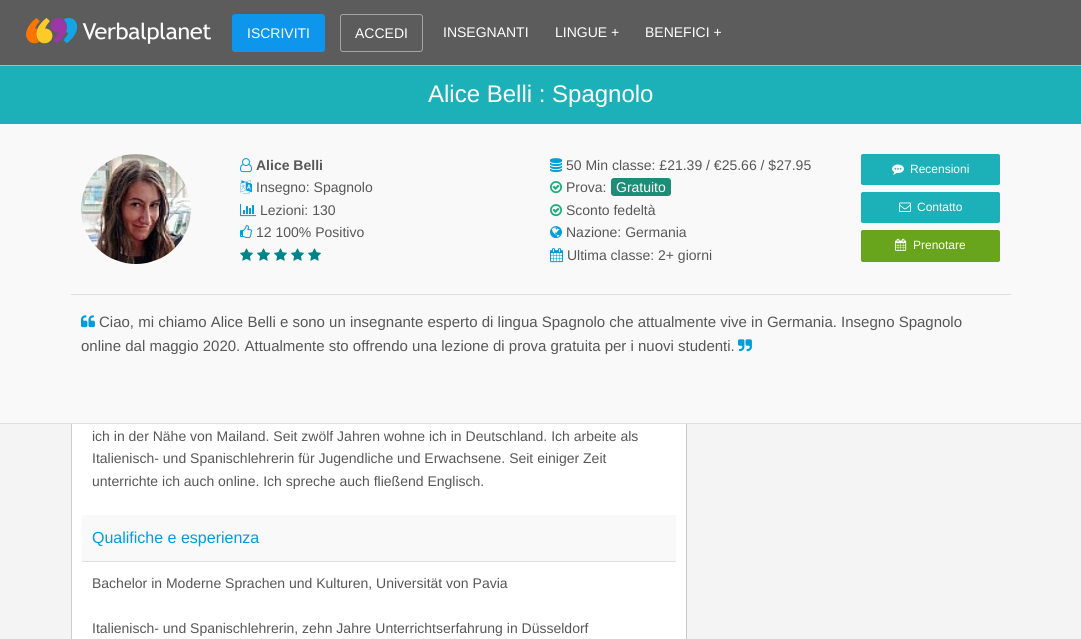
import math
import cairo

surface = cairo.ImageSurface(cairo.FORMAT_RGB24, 1081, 639)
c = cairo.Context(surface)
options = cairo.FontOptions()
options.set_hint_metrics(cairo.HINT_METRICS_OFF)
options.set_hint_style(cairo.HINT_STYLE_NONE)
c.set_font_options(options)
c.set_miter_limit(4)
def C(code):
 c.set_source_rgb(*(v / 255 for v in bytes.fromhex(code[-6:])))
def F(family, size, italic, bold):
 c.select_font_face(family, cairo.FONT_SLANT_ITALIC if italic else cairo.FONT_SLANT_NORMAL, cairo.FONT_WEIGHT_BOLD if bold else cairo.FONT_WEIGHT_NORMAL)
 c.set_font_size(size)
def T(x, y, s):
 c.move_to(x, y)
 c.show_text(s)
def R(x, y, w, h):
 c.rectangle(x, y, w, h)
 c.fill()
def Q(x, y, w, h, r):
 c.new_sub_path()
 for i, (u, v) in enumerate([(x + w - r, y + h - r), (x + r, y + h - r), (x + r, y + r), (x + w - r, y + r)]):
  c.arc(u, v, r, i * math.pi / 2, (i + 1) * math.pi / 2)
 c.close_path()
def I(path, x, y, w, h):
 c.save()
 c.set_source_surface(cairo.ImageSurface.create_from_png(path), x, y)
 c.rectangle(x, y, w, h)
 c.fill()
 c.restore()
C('f4f4f4')
c.paint()
C('5c5c5c')
R(0,0,1081,65)
I('1.png',26,17,185,27)
C('0e96ec')
Q(232.5,14.5,92,37,2.5)
c.fill_preserve()
c.set_line_width(1)
c.stroke()
F('Liberation Sans',14,0,0)
C('ffffff')
T(247,38,'ISCRIVITI')
Q(340.5,14.5,82,37,2.5)
C('a4a4a4')
c.stroke()
C('ffffff')
T(355,38,'ACCEDI')
C('76ced4')
R(0,65,1081,1)
C('ffffff')
T(443,37,'INSEGNANTI')
T(555,37,'LINGUE +')
T(645,37,'BENEFICI +')
C('1cb0b9')
R(0,66,1081,57)
C('36a5af')
R(0,123,1081,1)
F('Liberation Sans',24,0,0)
C('ffffff')
T(428,102,'Alice Belli : Spagnolo')
R(71,424,616,215)
c.rectangle(71.5,335.5,615,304)
c.set_source_rgba(0,0,0,0.2)
c.stroke()
C('f9f9f9')
R(0,124,1081,299)
C('dfdfdf')
R(0,423,1081,1)
C('ffffff')
c.arc(136,209,55,0,2 * math.pi)
c.fill()
I('2.png',81,154,110,110)
I('3.png',240,158,12,15)
F('Liberation Sans',14,0,1)
C('575757')
T(256,170,'Alice Belli')
I('4.png',240,180,12,15)
F('Liberation Sans',14,0,0)
T(256,192,'Insegno: Spagnolo')
I('5.png',240,204,16,13)
T(260,215,'Lezioni: 130')
I('6.png',240,225,12,14)
T(256,237,'12 100% Positivo')
I('7.png',240,248,13,13)
I('7.png',257,248,13,13)
I('7.png',274,248,13,13)
I('7.png',291,248,13,13)
I('7.png',308,248,13,13)
I('8.png',550,158,12,15)
T(566,170,'50 Min classe: £21.39 / €25.66 / $27.95')
I('9.png',550,181,12,13)
T(566,192,'Prova:')
C('1c8d76')
Q(611,178,60,18,3)
c.fill()
C('ffffff')
T(616,192,'Gratuito')
I('9.png',550,204,12,13)
C('575757')
T(566,215,'Sconto fedeltà')
I('10.png',550,226,12,13)
T(566,237,'Nazione: Germania')
I('11.png',550,248,13,15)
T(567,260,'Ultima classe: 2+ giorni')
C('1cb0b9')
Q(861.5,154.5,138,30,1.5)
c.fill_preserve()
c.stroke()
I('12.png',892,164,12,11)
F('Liberation Sans',12,0,0)
C('ffffff')
T(910,173,'Recensioni')
C('1cb0b9')
Q(861.5,192.5,138,30,1.5)
c.fill_preserve()
c.stroke()
I('13.png',899,202,12,10)
C('ffffff')
T(917,211,'Contatto')
C('68a51c')
Q(861.5,230.5,138,31,1.5)
c.fill_preserve()
c.stroke()
I('14.png',895,238,12,13)
C('ffffff')
T(913,249,'Prenotare')
C('dfdfdf')
R(71,294,940,1)
I('15.png',81,315,14,13)
F('Liberation Sans',15,0,0)
C('575757')
T(99,327,'Ciao, mi chiamo Alice Belli e sono un insegnante esperto di lingua Spagnolo che attualmente vive in Germania. Insegno Spagnolo')
T(81,351,'online dal maggio 2020. Attualmente sto offrendo una lezione di prova gratuita per i nuovi studenti.')
I('16.png',738,339,14,13)
F('Liberation Sans',14,0,0)
T(92,441,'ich in der Nähe von Mailand. Seit zwölf Jahren wohne ich in Deutschland. Ich arbeite als')
T(92,463,'Italienisch- und Spanischlehrerin für Jugendliche und Erwachsene. Seit einiger Zeit')
T(92,486,'unterrichte ich auch online. Ich spreche auch fließend Englisch.')
C('f9f9f9')
R(82,515,594,46)
C('dfdfdf')
R(82,561,594,1)
F('Liberation Sans',16,0,0)
C('009ddc')
T(92,543,'Qualifiche e esperienza')
F('Liberation Sans',14,0,0)
C('575757')
T(92,588,'Bachelor in Moderne Sprachen und Kulturen, Universität von Pavia')
T(92,633,'Italienisch- und Spanischlehrerin, zehn Jahre Unterrichtserfahrung in Düsseldorf')
surface.write_to_png('o.png')
